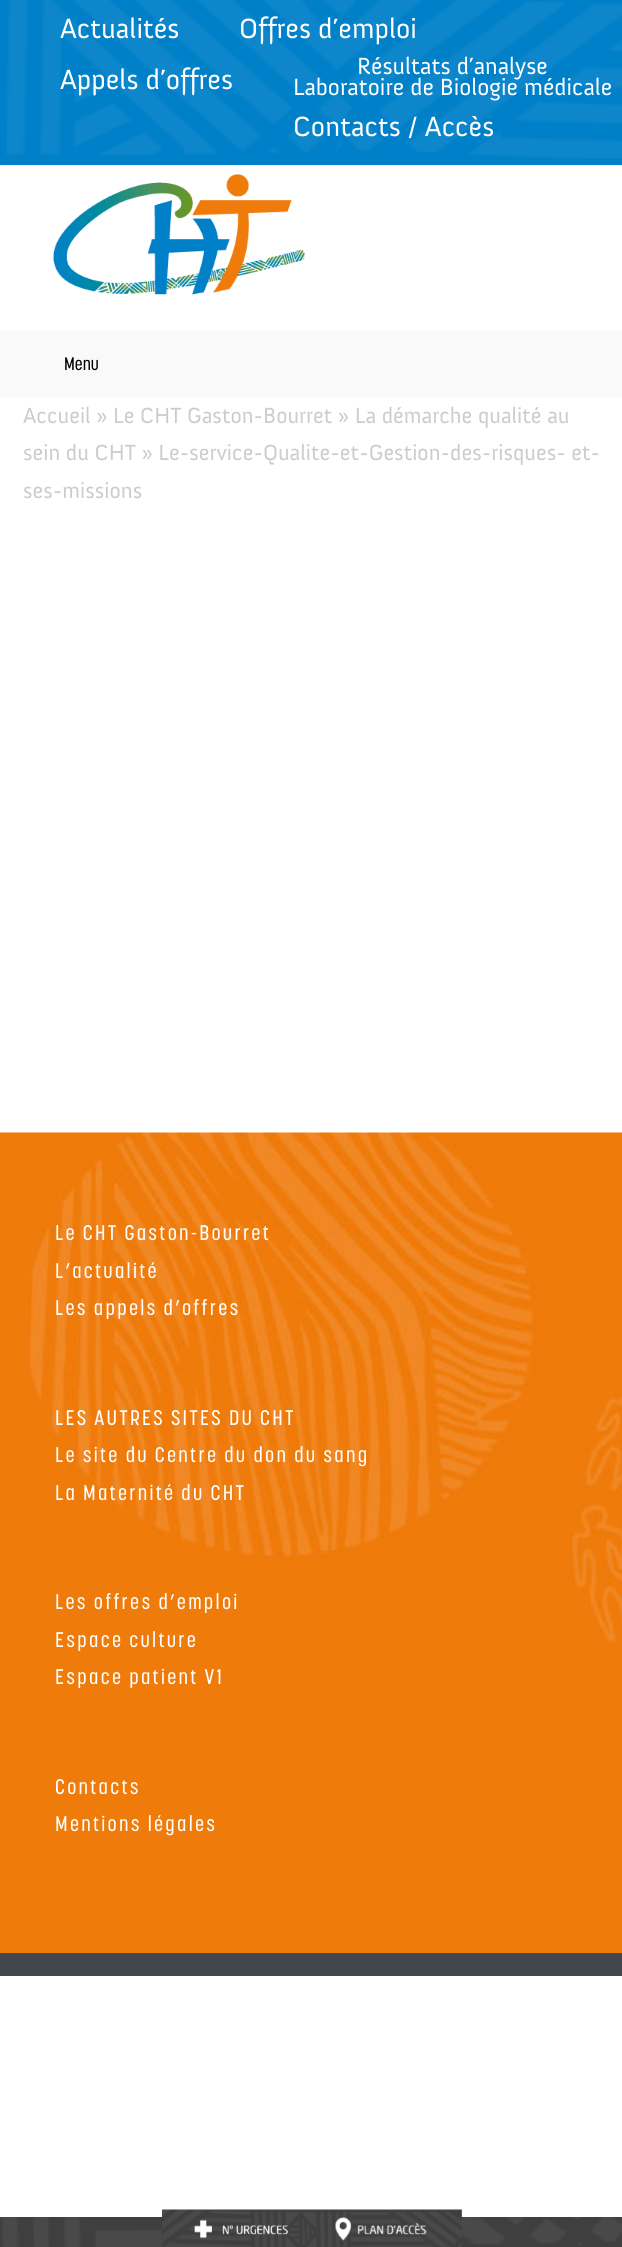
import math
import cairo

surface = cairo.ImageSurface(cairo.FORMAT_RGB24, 622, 2247)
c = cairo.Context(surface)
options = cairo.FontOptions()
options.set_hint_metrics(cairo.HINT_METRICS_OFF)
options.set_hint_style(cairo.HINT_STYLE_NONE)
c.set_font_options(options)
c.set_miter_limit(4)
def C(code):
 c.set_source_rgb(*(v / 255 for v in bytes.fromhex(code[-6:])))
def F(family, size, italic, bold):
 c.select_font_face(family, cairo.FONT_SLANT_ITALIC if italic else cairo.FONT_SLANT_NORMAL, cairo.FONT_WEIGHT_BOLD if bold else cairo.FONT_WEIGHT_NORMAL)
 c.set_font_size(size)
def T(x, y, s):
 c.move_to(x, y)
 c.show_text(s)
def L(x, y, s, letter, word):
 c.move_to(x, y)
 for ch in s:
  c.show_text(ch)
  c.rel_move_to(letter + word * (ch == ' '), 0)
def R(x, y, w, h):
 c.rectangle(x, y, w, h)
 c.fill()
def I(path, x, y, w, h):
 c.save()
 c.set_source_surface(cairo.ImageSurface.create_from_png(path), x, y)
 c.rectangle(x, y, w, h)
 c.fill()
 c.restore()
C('ffffff')
c.paint()
C('0080c8')
R(0,0,622,165)
I('1.png',6,0,616,159)
F('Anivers',28.5,0,0)
C('ffffff')
T(60,38,'Actualités')
T(239,38,'Offres d’emploi')
T(60,89,'Appels d’offres')
F('Anivers',24,0,0)
T(357,74,'Résultats d’analyse')
T(293,95,'Laboratoire de Biologie médicale')
F('Anivers',28.5,0,0)
T(293,136,'Contacts / Accès')
I('2.png',53,174,252,121)
C('f9f9f9')
R(0,330,622,68)
F('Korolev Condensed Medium',18,0,0)
C('000000')
T(64,370,'Menu')
F('Anivers',22.5,0,0)
C('cccccc')
T(23,423,'Accueil » Le CHT Gaston-Bourret » La démarche qualité au')
T(23,460,'sein du CHT » Le-service-Qualite-et-Gestion-des-risques- et-')
T(23,498,'ses-missions')
I('3.png',0,1132,622,821)
F('Korolev Condensed Medium',21,0,0)
C('ffffff')
L(55,1240,'Le CHT Gaston-Bourret',2.25,0)
L(55,1278,'L’actualité',2.25,0)
L(55,1315,'Les appels d’offres',2.25,0)
L(55,1425,'LES AUTRES SITES DU CHT',2.25,0)
L(55,1462,'Le site du Centre du don du sang',2.25,0)
L(55,1500,'La Maternité du CHT',2.25,0)
L(55,1609,'Les offres d’emploi',2.25,0)
L(55,1647,'Espace culture',2.25,0)
L(55,1684,'Espace patient V1',2.25,0)
L(55,1794,'Contacts',2.25,0)
L(55,1831,'Mentions légales',2.25,0)
C('43474d')
R(0,1953,622,23)
I('4.png',0,2217,622,30)
I('5.png',162,2209,300,38)
surface.write_to_png('o.png')
